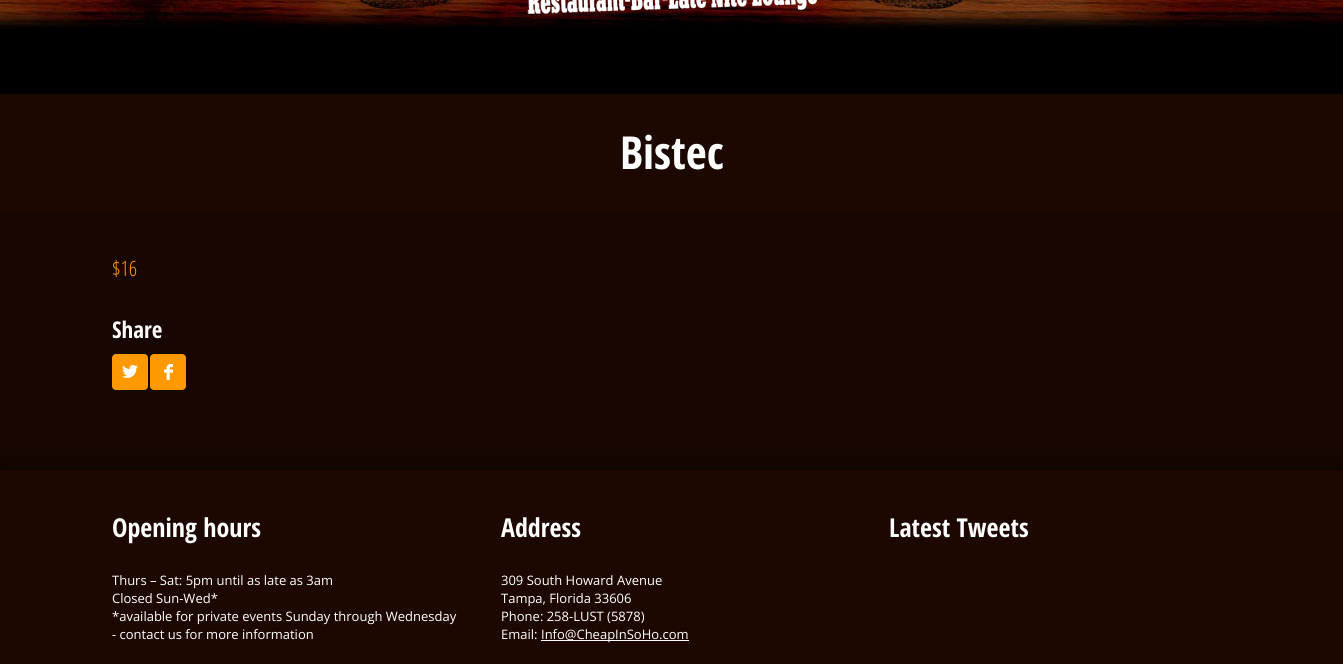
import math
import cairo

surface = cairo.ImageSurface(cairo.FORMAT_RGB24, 1343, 664)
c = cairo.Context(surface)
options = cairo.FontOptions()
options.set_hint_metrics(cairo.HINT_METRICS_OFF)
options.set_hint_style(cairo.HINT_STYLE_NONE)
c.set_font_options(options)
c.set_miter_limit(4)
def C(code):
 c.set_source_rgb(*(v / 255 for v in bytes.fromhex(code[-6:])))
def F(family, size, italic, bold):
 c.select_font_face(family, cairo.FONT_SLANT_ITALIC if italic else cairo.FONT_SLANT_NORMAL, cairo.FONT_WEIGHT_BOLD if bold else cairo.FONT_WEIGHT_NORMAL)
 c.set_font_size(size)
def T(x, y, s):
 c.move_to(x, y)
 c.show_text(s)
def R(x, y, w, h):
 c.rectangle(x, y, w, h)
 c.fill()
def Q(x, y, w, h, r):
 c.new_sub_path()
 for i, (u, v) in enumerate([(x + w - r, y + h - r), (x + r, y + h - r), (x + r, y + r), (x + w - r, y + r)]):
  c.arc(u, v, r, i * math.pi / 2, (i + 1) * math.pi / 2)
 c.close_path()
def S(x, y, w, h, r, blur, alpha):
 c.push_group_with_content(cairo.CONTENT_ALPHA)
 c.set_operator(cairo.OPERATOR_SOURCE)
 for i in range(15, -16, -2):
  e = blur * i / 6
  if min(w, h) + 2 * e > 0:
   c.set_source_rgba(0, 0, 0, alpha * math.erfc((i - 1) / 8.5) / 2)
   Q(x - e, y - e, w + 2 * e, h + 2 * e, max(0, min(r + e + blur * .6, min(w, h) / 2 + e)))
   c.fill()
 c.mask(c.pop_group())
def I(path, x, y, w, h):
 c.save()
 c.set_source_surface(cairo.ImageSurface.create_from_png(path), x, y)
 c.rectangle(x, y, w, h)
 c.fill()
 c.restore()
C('1d0801')
c.paint()
I('1.png',0,0,1343,29)
I('2.png',527,0,290,14)
C('000000')
R(0,29,1343,65)
F('Open Sans Condensed',45.5,0,1)
C('ffffff')
T(620,169,'Bistec')
C('170601')
R(0,213,1343,257)
F('Open Sans Condensed Light',21,0,0)
C('ff9900')
T(112,276,'$16')
F('Open Sans Condensed',23,0,1)
C('ffffff')
T(112,338,'Share')
C('ff9900')
Q(112,354,36,36,4)
c.fill()
I('3.png',122,365,16,13)
Q(150,354,36,36,4)
c.fill()
I('4.png',164,364,9,16)
C('000000')
S(0,470,1343,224,0,10,.5)
C('1d0801')
R(0,470,1343,194)
F('Open Sans Condensed',26,0,1)
C('ffffff')
T(112,537,'Opening hours')
F('Open Sans',13,0,0)
T(112,585,'Thurs – Sat: 5pm until as late as 3am')
T(112,603,'Closed Sun-Wed*')
T(112,621,'*available for private events Sunday through Wednesday')
T(112,639,'- contact us for more information')
F('Open Sans Condensed',26,0,1)
T(501,537,'Address')
F('Open Sans',13,0,0)
T(501,585,'309 South Howard Avenue')
T(501,603,'Tampa, Florida 33606')
T(501,621,'Phone: 258-LUST (5878)')
T(501,639,'Email:')
R(541,640,148,1)
T(541,639,'Info@CheapInSoHo.com')
F('Open Sans Condensed',26,0,1)
T(889,537,'Latest Tweets')
surface.write_to_png('o.png')
